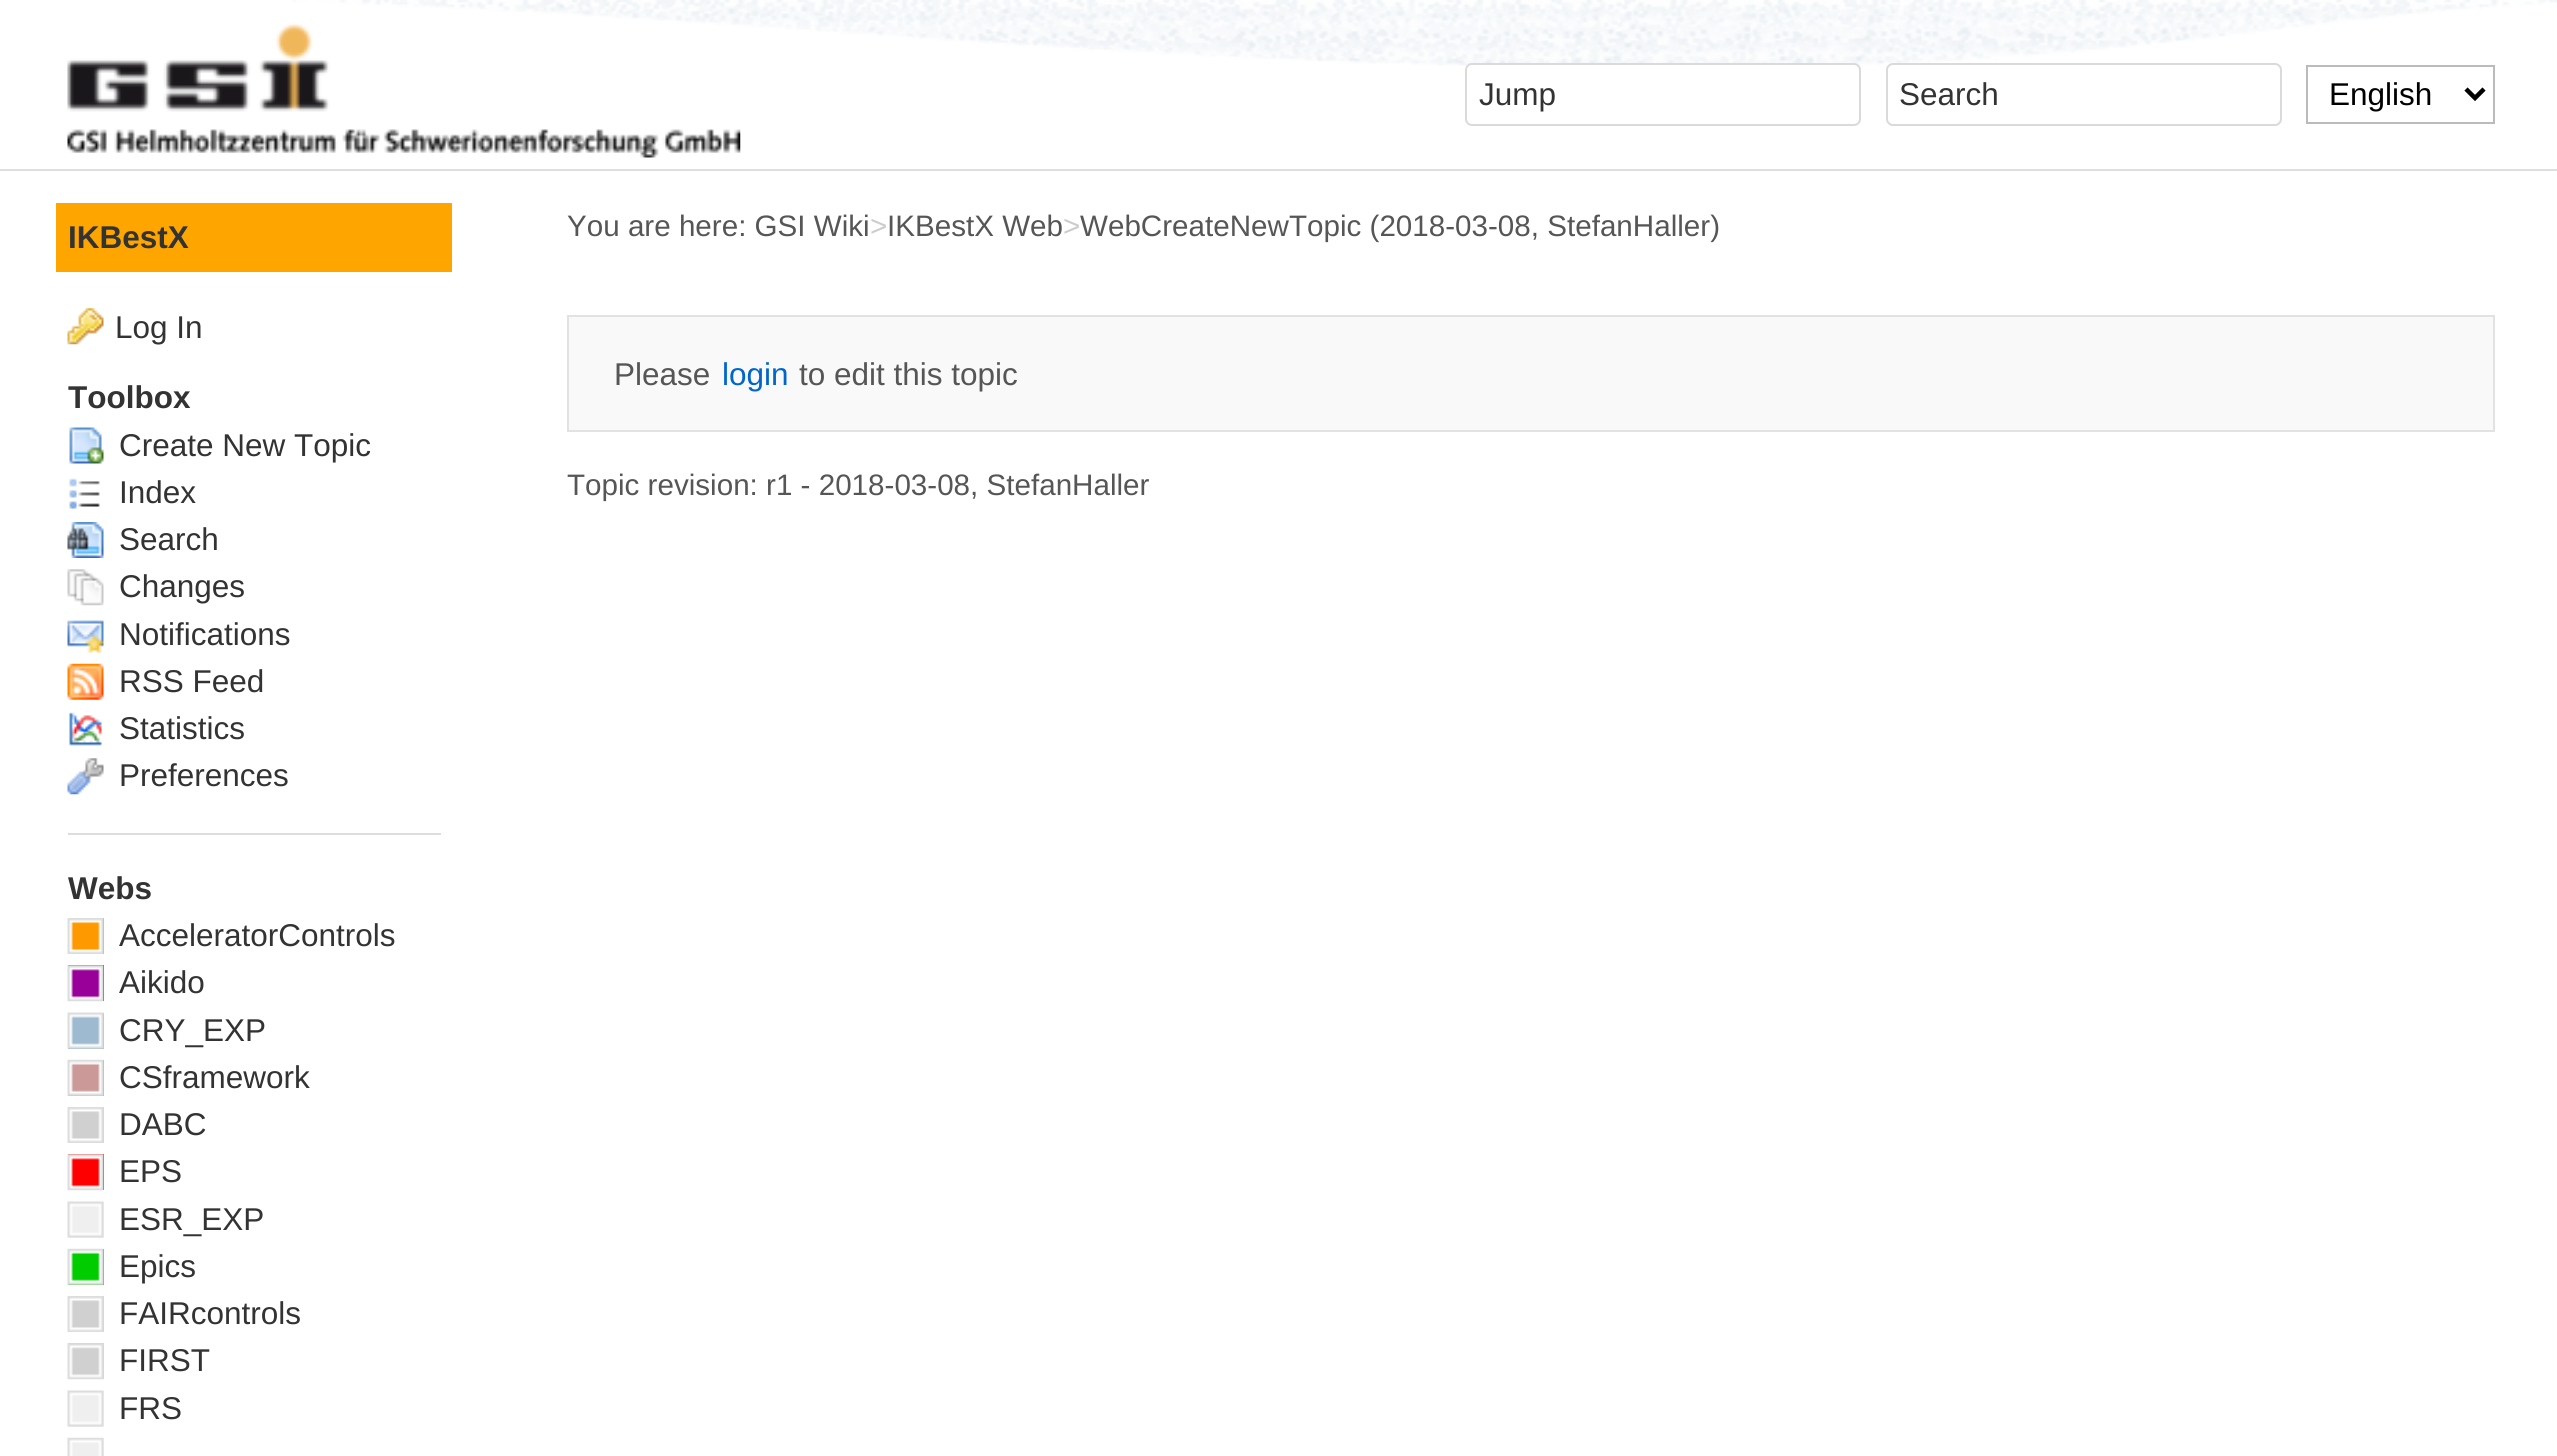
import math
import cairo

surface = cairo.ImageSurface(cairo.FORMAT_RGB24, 2557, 1456)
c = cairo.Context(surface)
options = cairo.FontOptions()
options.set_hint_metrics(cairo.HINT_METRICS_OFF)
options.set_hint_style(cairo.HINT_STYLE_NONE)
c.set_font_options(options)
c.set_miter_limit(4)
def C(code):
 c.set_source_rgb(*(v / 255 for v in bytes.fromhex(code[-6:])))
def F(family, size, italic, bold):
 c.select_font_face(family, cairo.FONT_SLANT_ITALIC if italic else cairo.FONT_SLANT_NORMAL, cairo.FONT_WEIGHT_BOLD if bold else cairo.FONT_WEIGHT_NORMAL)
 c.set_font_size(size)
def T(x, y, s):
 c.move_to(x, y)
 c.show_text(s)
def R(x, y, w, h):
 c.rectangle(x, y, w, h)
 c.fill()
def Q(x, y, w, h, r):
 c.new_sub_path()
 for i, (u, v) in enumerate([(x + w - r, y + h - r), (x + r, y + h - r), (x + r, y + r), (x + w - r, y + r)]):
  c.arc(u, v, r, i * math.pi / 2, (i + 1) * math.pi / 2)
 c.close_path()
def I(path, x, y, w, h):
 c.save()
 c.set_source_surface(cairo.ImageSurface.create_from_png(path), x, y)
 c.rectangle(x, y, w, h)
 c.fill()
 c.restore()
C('dfdfdf')
c.paint()
C('ffffff')
R(0,0,2557,169)
I('1.png',292,0,2265,68)
I('2.png',67,23,674,135)
Q(1466,64,394,61,6)
c.fill_preserve()
C('dadada')
c.stroke()
F('Liberation Sans',31.5,0,0)
C('333333')
T(1479,105,'Jump')
C('ffffff')
Q(1887,64,394,61,6)
c.fill_preserve()
C('dadada')
c.stroke()
C('333333')
T(1899,105,'Search')
c.rectangle(2307,66,187,57)
C('bbbbbb')
c.stroke()
c.new_path()
c.move_to(2466,89)
c.line_to(2475,98)
c.line_to(2484,89)
C('000000')
c.set_line_width(4.5)
c.stroke()
T(2329,105,'English')
C('ffffff')
R(0,171,2557,1285)
C('ffa500')
R(56,203,396,69)
F('Liberation Sans',31.5,0,1)
C('333333')
T(68,248,'IKBestX')
I('3.png',67,308,37,37)
F('Liberation Sans',31.5,0,0)
T(115,338,'Log In')
F('Liberation Sans',31.5,0,1)
T(68,408,'Toolbox')
I('4.png',69,427,35,37)
F('Liberation Sans',31.5,0,0)
T(119,456,'Create New Topic')
I('5.png',69,478,31,32)
T(119,503,'Index')
I('6.png',67,522,37,36)
T(119,550,'Search')
I('7.png',67,569,37,37)
T(119,597,'Changes')
I('8.png',67,620,37,33)
T(119,645,'Notifications')
I('9.png',67,663,37,37)
T(119,692,'RSS Feed')
I('10.png',69,712,33,34)
T(119,739,'Statistics')
I('11.png',67,758,37,37)
T(119,786,'Preferences')
C('dddddd')
R(68,833,373,2)
F('Liberation Sans',31.5,0,1)
C('333333')
T(68,899,'Webs')
C('ff9900')
R(71,918,33,36)
I('12.png',67,918,37,36)
F('Liberation Sans',31.5,0,0)
C('333333')
T(119,946,'AcceleratorControls')
C('990099')
R(68,965,36,36)
I('13.png',67,965,37,37)
C('333333')
T(119,993,'Aikido')
C('9ebad0')
R(68,1013,36,36)
I('14.png',67,1012,37,37)
C('333333')
T(119,1041,'CRY_EXP')
C('cc9999')
R(68,1060,36,36)
I('15.png',67,1059,37,37)
C('333333')
T(119,1088,'CSframework')
C('d0d0d0')
R(71,1107,33,36)
I('16.png',67,1107,37,36)
C('333333')
T(119,1135,'DABC')
C('ff0000')
R(68,1154,36,36)
I('17.png',67,1154,37,37)
C('333333')
T(119,1182,'EPS')
C('efefef')
R(68,1202,36,36)
I('18.png',67,1201,37,37)
C('333333')
T(119,1230,'ESR_EXP')
C('00cc00')
R(68,1249,36,36)
I('19.png',67,1248,37,37)
C('333333')
T(119,1277,'Epics')
C('d0d0d0')
R(71,1296,33,36)
I('16.png',67,1296,37,36)
C('333333')
T(119,1324,'FAIRcontrols')
C('d0d0d0')
R(68,1343,36,36)
I('20.png',67,1343,37,37)
C('333333')
T(119,1371,'FIRST')
C('efefef')
R(68,1391,36,36)
I('18.png',67,1390,37,37)
C('333333')
T(119,1419,'FRS')
C('efefef')
R(71,1438,33,18)
I('21.png',67,1437,37,19)
F('Liberation Sans',29.6,0,0)
C('565656')
T(567,236,'You are here: GSI Wiki')
C('cccccc')
T(870,236,'>')
C('565656')
T(887,236,'IKBestX Web')
C('cccccc')
T(1063,236,'>')
C('565656')
T(1080,236,'WebCreateNewTopic (2018-03-08, StefanHaller)')
C('f9f9fa')
c.rectangle(568,316,1926,115)
c.fill_preserve()
C('e2e2e2')
c.set_line_width(2)
c.stroke()
F('Liberation Sans',31.5,0,0)
C('565656')
T(614,385,'Please')
C('0066cc')
T(722,385,'login')
C('565656')
T(799,385,'to edit this topic')
F('Liberation Sans',29.6,0,0)
T(567,495,'Topic revision: r1 - 2018-03-08, StefanHaller')
surface.write_to_png('o.png')
